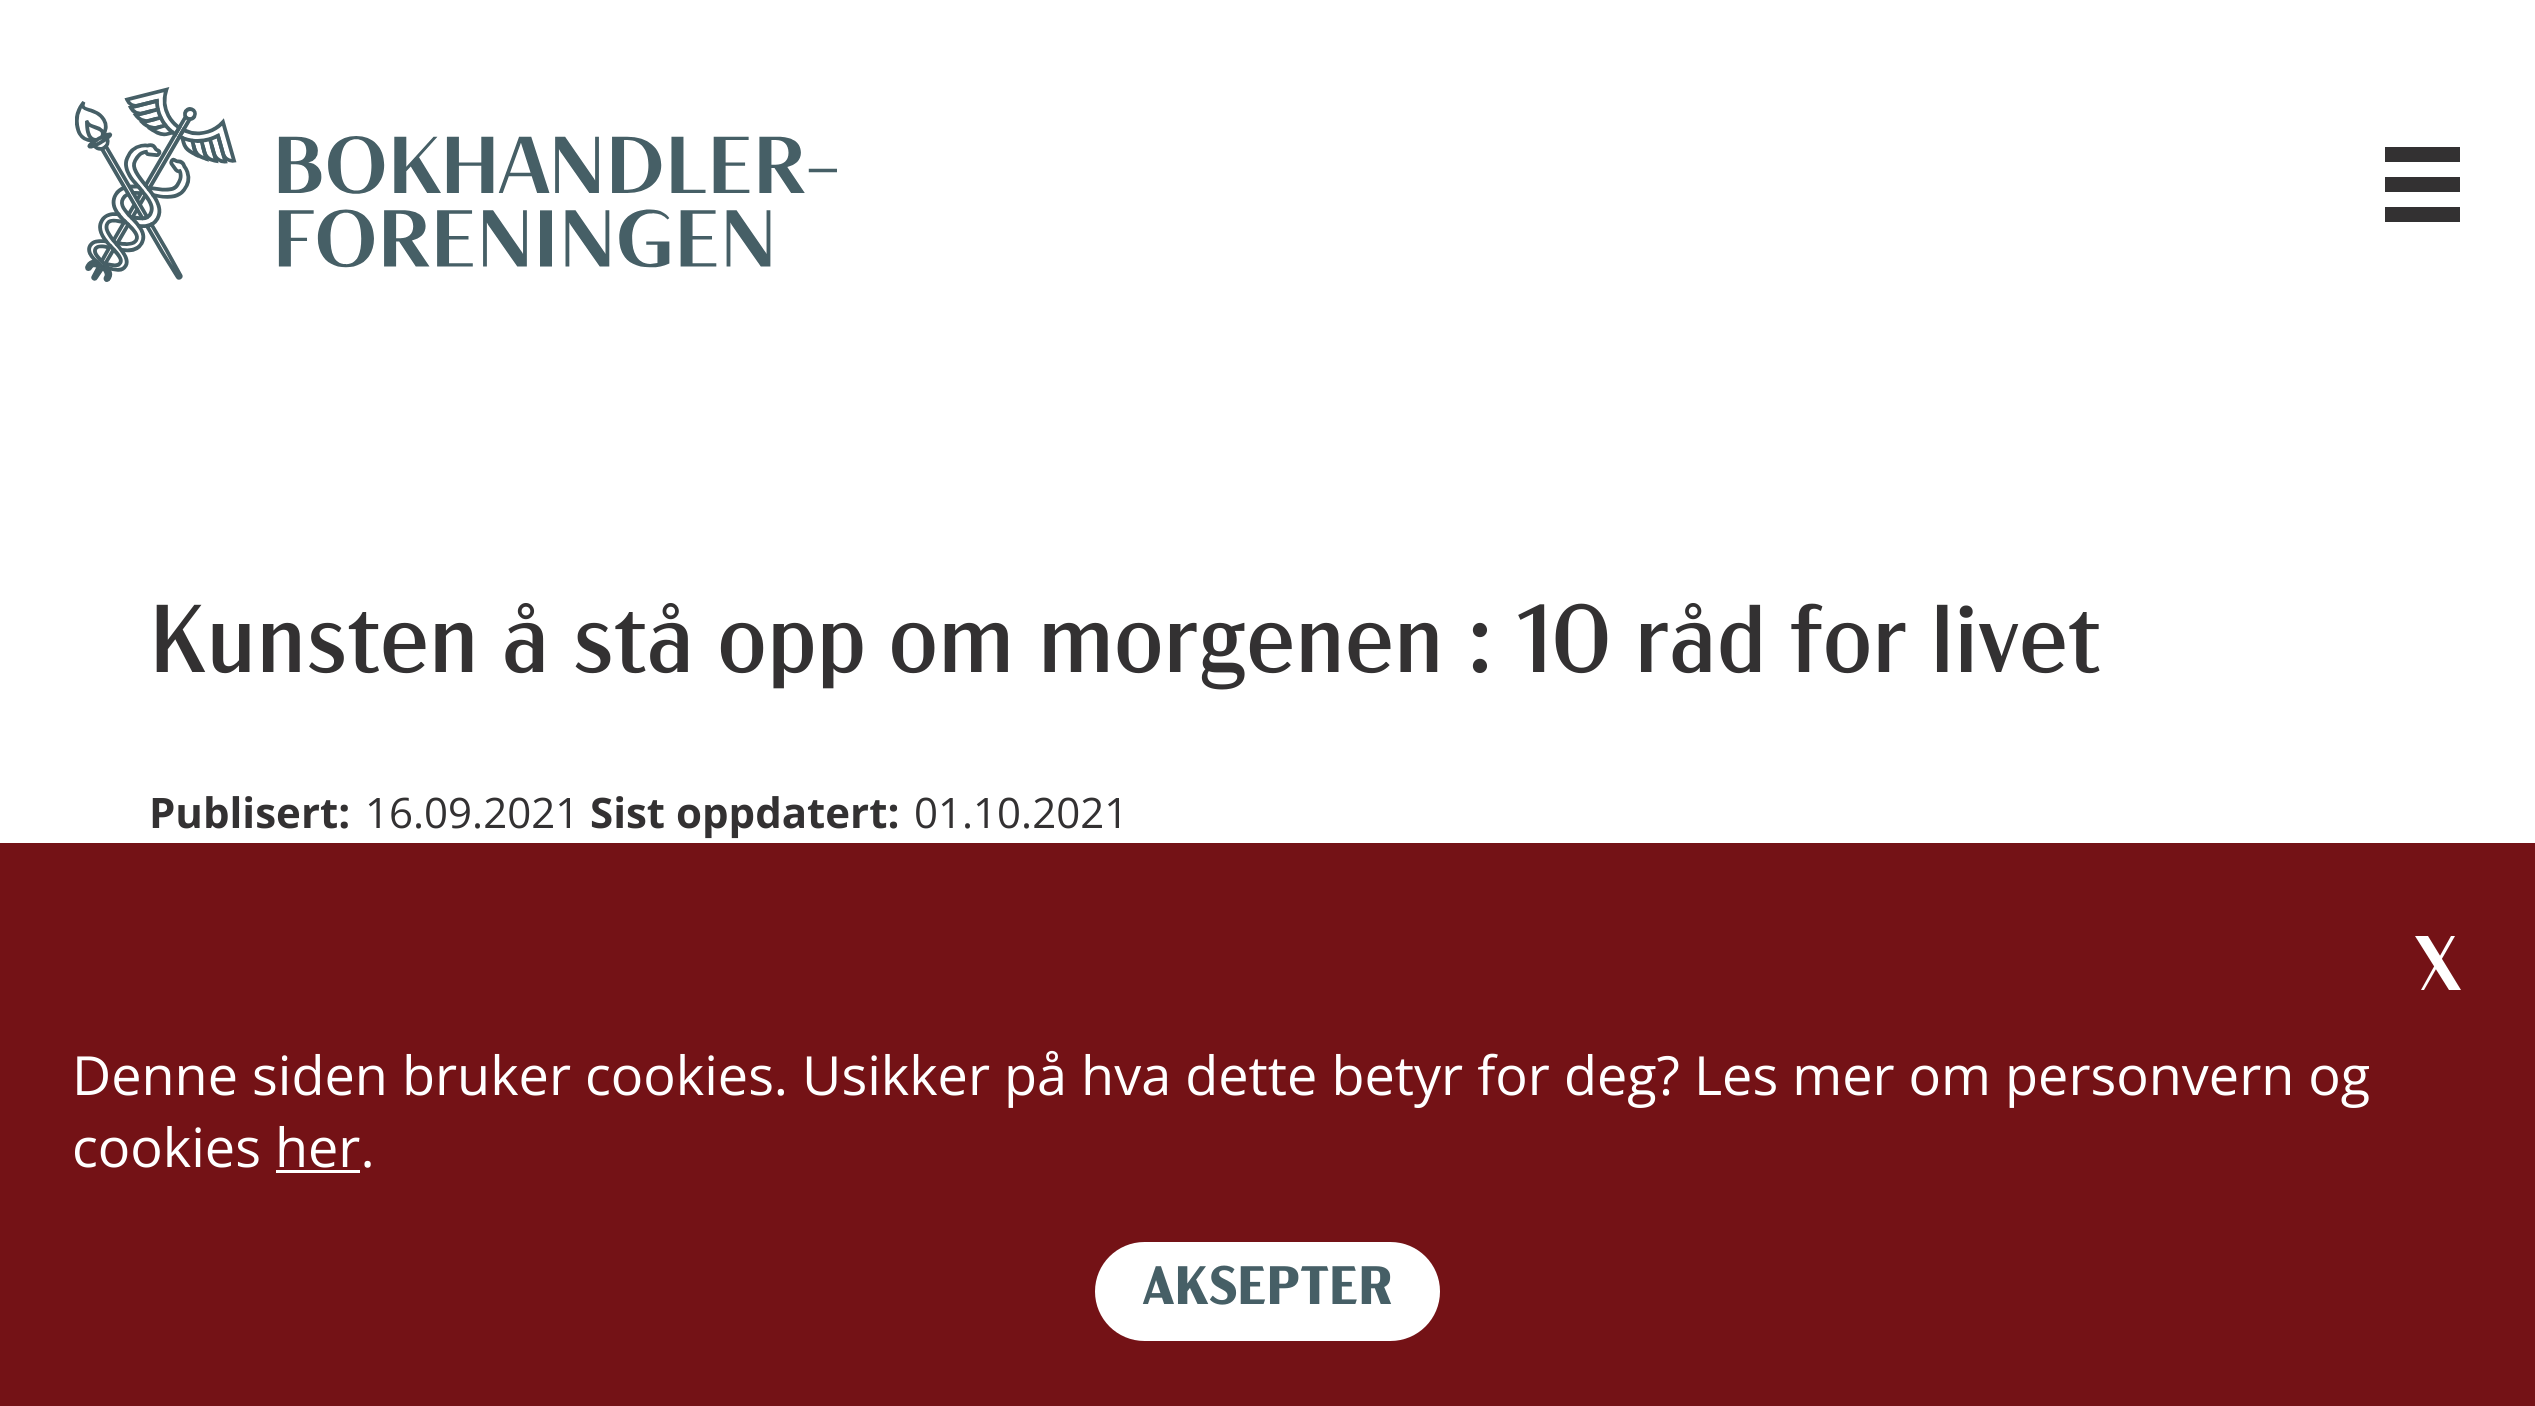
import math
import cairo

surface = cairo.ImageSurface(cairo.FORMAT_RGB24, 2535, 1406)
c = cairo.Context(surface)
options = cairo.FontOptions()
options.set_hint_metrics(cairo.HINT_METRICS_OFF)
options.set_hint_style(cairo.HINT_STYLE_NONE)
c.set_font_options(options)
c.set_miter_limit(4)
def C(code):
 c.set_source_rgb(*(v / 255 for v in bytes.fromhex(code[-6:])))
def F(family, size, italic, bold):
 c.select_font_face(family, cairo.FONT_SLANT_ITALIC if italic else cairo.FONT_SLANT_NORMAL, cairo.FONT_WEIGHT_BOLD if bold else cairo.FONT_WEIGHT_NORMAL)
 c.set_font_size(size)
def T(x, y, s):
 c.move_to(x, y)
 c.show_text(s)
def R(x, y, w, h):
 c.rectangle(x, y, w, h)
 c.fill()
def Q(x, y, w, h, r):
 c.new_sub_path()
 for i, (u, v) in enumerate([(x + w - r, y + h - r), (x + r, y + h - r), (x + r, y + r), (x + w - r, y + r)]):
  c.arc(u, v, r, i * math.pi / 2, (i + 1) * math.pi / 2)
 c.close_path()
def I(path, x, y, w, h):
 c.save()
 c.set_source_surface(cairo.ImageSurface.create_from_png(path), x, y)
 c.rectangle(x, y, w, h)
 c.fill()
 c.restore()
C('ffffff')
c.paint()
I('1.png',75,87,762,195)
C('333132')
R(2385,147,75,15)
R(2385,177,75,15)
R(2385,207,75,15)
F('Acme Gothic',96,0,0)
T(149,672,'Kunsten å stå opp om morgenen : 10 råd for livet')
F('Open Sans',42,0,1)
T(149,828,'Publisert:')
F('Open Sans',42,0,0)
T(365,828,'16.09.2021')
F('Open Sans',42,0,1)
T(590,828,'Sist oppdatert:')
F('Open Sans',42,0,0)
T(914,828,'01.10.2021')
C('741216')
R(0,843,2535,563)
C('ffffff')
c.new_path()
c.move_to(2424,990)
c.line_to(2455,936)
c.line_to(2451,936)
c.line_to(2421,990)
c.close_path()
c.fill()
c.new_path()
c.move_to(2449,990)
c.line_to(2461,990)
c.line_to(2428,936)
c.line_to(2415,936)
c.close_path()
c.fill()
F('Open Sans',54,0,0)
T(72,1095,'Denne siden bruker cookies. Usikker på hva dette betyr for deg? Les mer om personvern og')
T(72,1167,'cookies her.')
R(276,1170,84,3)
Q(1095,1242,345,99,49.5)
c.fill()
F('Acme Gothic',54,0,1)
C('465f66')
T(1142,1304,'AKSEPTER')
surface.write_to_png('o.png')
